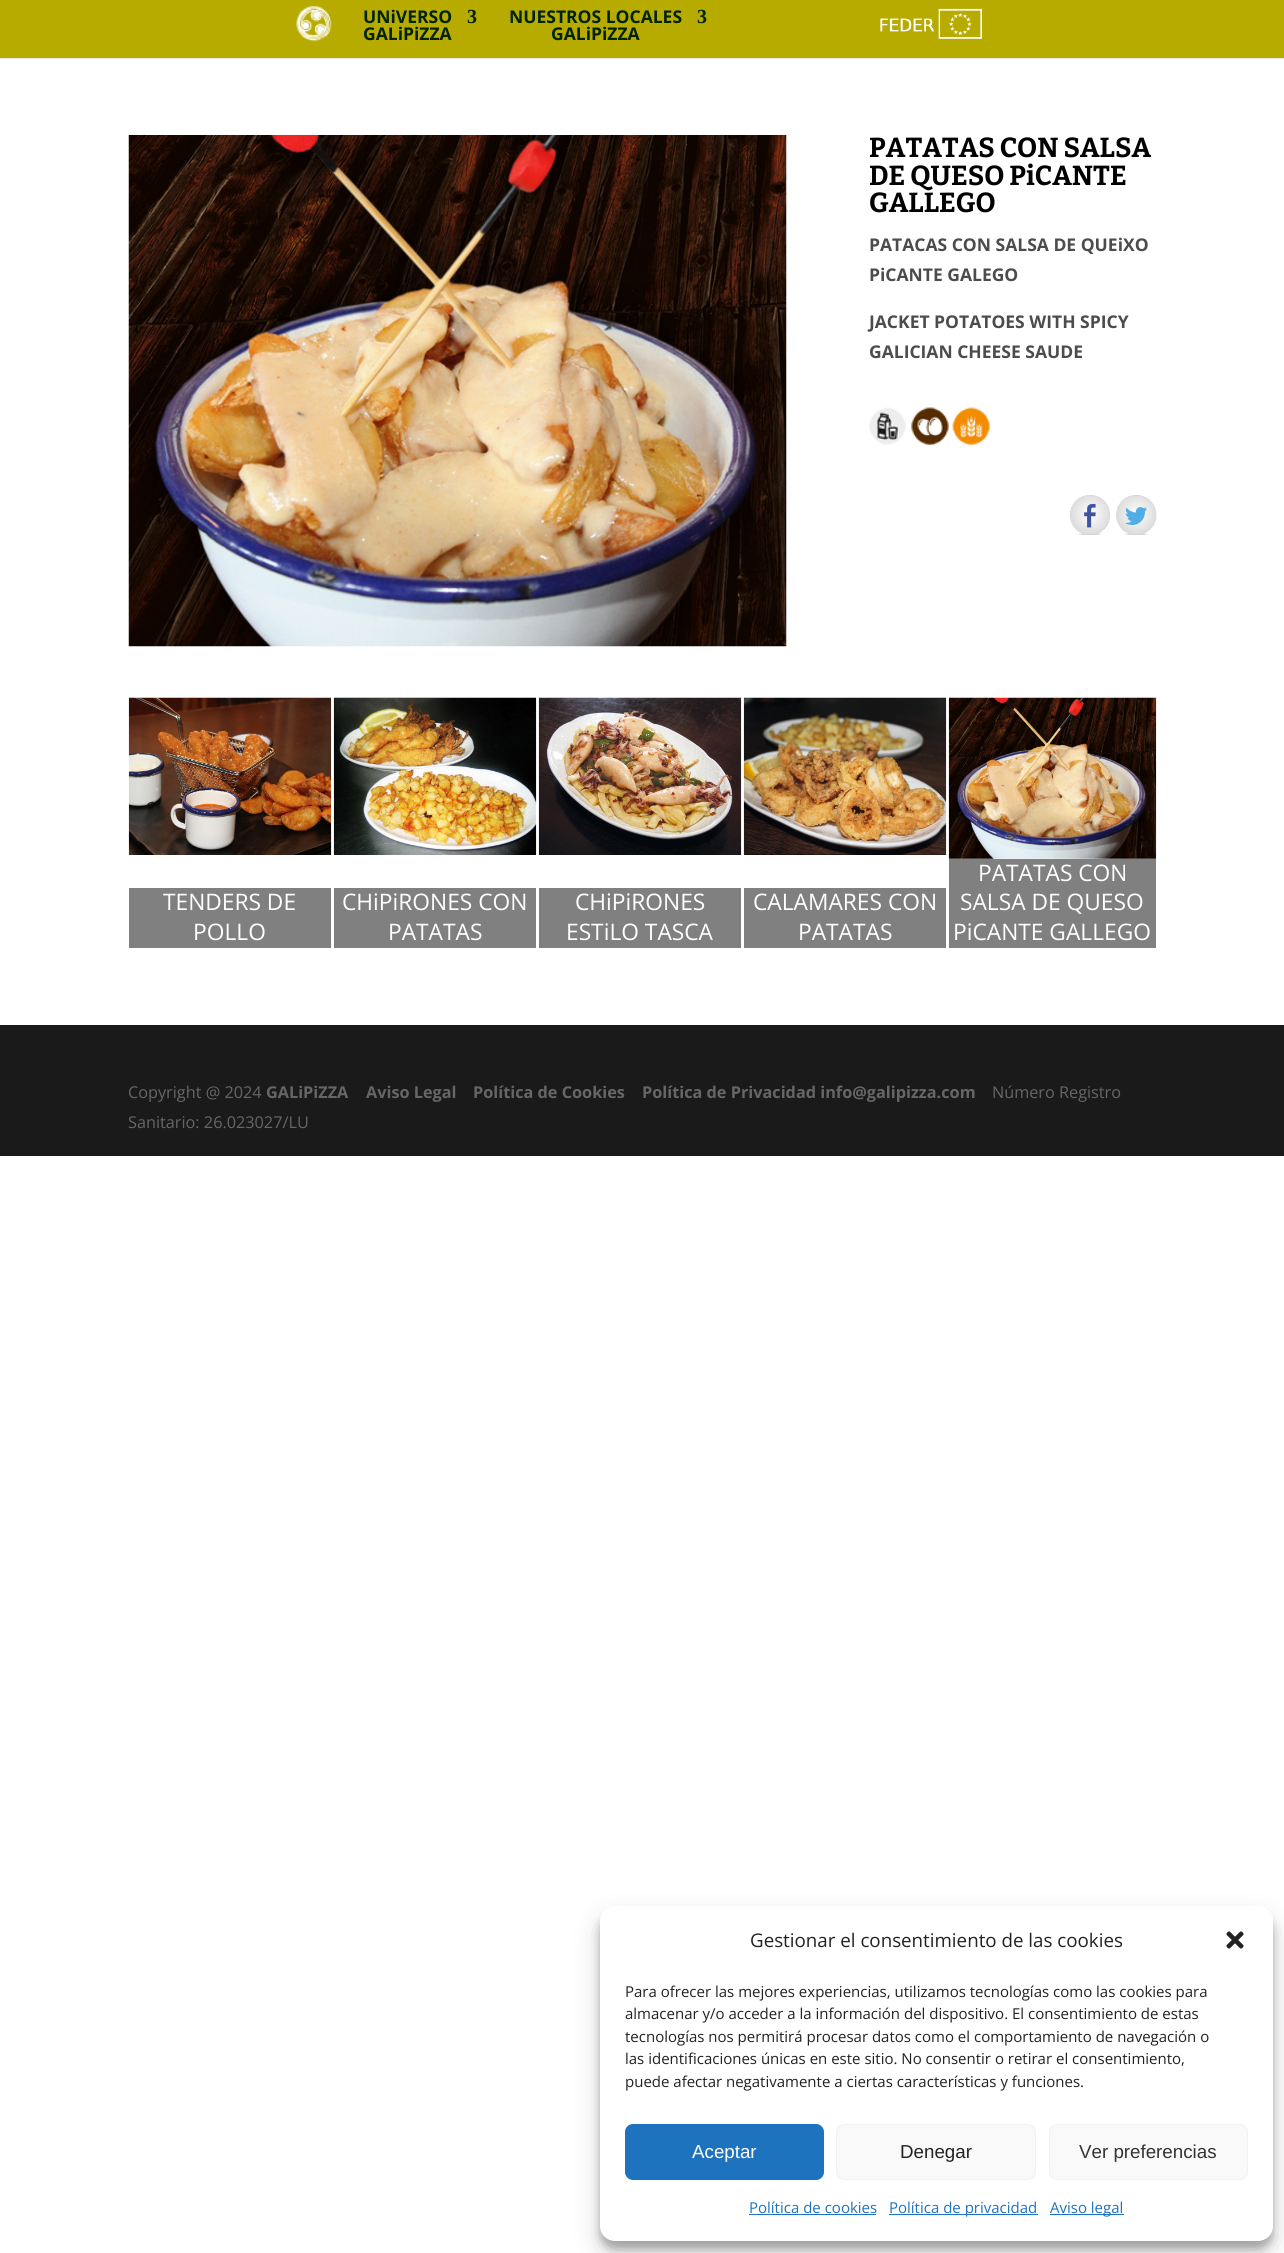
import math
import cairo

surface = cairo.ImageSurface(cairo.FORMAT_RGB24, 1284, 2253)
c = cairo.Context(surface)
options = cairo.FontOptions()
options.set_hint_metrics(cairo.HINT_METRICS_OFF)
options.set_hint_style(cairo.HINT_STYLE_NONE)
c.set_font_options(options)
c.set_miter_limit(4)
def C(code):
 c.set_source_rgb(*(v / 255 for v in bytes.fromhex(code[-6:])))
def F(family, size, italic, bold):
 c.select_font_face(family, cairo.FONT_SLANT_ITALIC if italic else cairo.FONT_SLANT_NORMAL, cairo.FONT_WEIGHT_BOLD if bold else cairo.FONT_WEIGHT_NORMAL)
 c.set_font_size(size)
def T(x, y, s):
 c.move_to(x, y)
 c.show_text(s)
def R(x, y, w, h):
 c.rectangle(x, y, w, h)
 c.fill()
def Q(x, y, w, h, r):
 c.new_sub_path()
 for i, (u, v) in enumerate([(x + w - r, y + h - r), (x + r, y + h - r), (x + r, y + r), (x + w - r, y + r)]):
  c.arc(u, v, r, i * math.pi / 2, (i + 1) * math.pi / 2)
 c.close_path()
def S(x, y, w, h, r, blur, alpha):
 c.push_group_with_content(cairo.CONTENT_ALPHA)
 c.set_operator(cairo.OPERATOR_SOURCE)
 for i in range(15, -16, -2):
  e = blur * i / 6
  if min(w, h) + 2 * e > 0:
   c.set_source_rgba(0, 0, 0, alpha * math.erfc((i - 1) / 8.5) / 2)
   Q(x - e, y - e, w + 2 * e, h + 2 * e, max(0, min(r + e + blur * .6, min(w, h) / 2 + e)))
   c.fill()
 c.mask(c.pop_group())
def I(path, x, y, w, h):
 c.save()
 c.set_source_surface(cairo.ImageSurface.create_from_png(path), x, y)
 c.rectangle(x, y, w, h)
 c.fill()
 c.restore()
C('ffffff')
c.paint()
C('e6e6e6')
R(0,58,1284,1)
C('b7ab00')
R(0,0,1284,58)
I('1.png',296,6,36,36)
F('Open Sans',17.5,0,1)
C('012302')
T(363,23,'UNiVERSO')
T(363,40,'GALiPiZZA')
F('Liberation Serif',20,0,1)
T(467,23,'3')
F('Open Sans',17.5,0,1)
T(509,23,'NUESTROS LOCALES')
T(551,40,'GALiPiZZA')
F('Liberation Serif',20,0,1)
T(697,23,'3')
I('2.png',880,8,102,31)
I('3.png',128,135,659,512)
F('Bitter',27.5,0,1)
C('000000')
T(869,157,'PATATAS CON SALSA')
T(869,185,'DE QUESO PiCANTE')
T(869,212,'GALLEGO')
F('Open Sans',17.5,0,1)
C('4c4c4c')
T(869,251,'PATACAS CON SALSA DE QUEiXO')
T(869,281,'PiCANTE GALEGO')
T(869,328,'JACKET POTATOES WITH SPICY')
T(869,358,'GALICIAN CHEESE SAUDE')
I('4.png',869,407,37,38)
I('5.png',911,407,38,38)
I('6.png',952,407,38,38)
I('7.png',1070,495,40,40)
I('8.png',1116,495,41,40)
I('9.png',128,697,204,158)
C('808080')
R(129,888,202,60)
F('Open Sans',22.75,0,0)
C('ffffff')
T(163,910,'TENDERS DE')
T(193,940,'POLLO')
I('10.png',333,697,204,158)
C('808080')
R(334,888,202,60)
C('ffffff')
T(342,910,'CHiPiRONES CON')
T(388,940,'PATATAS')
I('11.png',538,697,204,158)
C('808080')
R(539,888,202,60)
C('ffffff')
T(575,910,'CHiPiRONES')
T(566,940,'ESTiLO TASCA')
I('12.png',743,697,204,158)
C('808080')
R(744,888,202,60)
C('ffffff')
T(753,910,'CALAMARES CON')
T(798,940,'PATATAS')
I('13.png',948,697,209,162)
C('808080')
R(949,859,207,89)
C('ffffff')
T(978,881,'PATATAS CON')
T(960,910,'SALSA DE QUESO')
T(953,940,'PiCANTE GALLEGO')
C('1a1a1a')
R(0,1025,1284,131)
F('Open Sans',16.25,0,0)
C('666666')
T(128,1098,'Copyright @ 2024')
F('Open Sans',16.25,0,1)
T(266,1098,'GALiPiZZA')
T(366,1098,'Aviso Legal')
T(473,1098,'Política de Cookies')
T(642,1098,'Política de Privacidad info@galipizza.com')
F('Open Sans',16.25,0,0)
T(992,1098,'Número Registro')
T(128,1128,'Sanitario: 26.023027/LU')
C('000000')
S(600,1914,673,335,15,4,.23)
S(600,1919,673,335,15,12.5,.19)
C('ffffff')
Q(600,1906,673,335,15)
c.fill()
F('Open Sans',18.75,0,0)
C('222222')
T(750,1947,'Gestionar el consentimiento de las cookies')
I('14.png',1226,1931,18,18)
F('Open Sans',15,0,0)
T(625,1997,'Para ofrecer las mejores experiencias, utilizamos tecnologías como las cookies para')
T(625,2019,'almacenar y/o acceder a la información del dispositivo. El consentimiento de estas')
T(625,2042,'tecnologías nos permitirá procesar datos como el comportamiento de navegación o')
T(625,2064,'las identificaciones únicas en este sitio. No consentir o retirar el consentimiento,')
T(625,2087,'puede afectar negativamente a ciertas características y funciones.')
C('1e73be')
Q(625.5,2124.5,198,55,7.5)
c.fill_preserve()
c.set_line_width(1)
c.stroke()
F('Liberation Sans',18.75,0,0)
C('ffffff')
T(692,2158,'Aceptar')
C('f9f9f9')
Q(836.5,2124.5,199,55,7.5)
c.fill_preserve()
C('f2f2f2')
c.stroke()
C('222222')
T(900,2158,'Denegar')
C('f9f9f9')
Q(1049.5,2124.5,198,55,7.5)
c.fill_preserve()
C('f2f2f2')
c.stroke()
C('333333')
T(1079,2158,'Ver preferencias')
F('Open Sans',15,0,0)
C('1e73be')
T(749,2213,'Política de cookies')
R(749,2214,127,1)
R(889,2214,149,1)
T(889,2213,'Política de privacidad')
R(1050,2214,74,1)
T(1050,2213,'Aviso legal')
surface.write_to_png('o.png')
